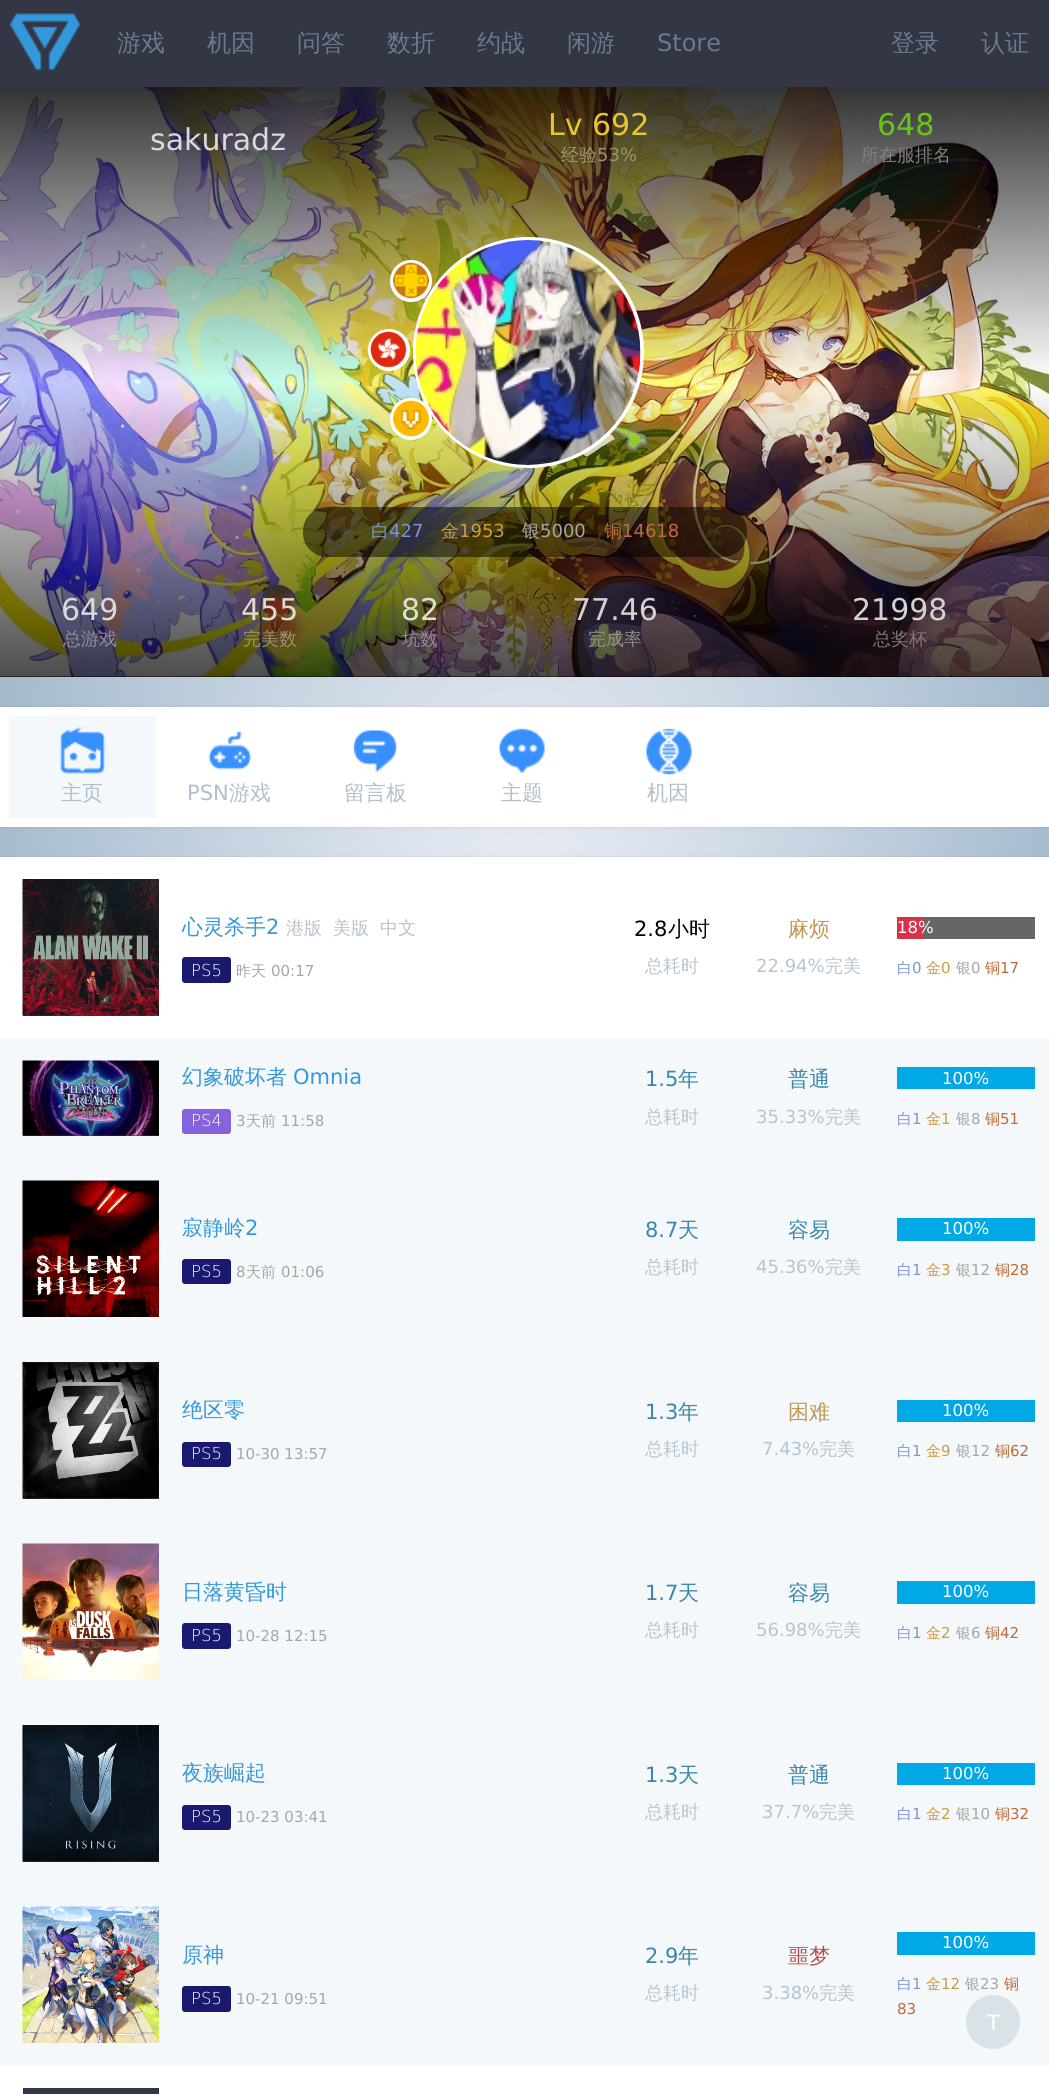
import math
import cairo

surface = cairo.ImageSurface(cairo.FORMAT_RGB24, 1049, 2094)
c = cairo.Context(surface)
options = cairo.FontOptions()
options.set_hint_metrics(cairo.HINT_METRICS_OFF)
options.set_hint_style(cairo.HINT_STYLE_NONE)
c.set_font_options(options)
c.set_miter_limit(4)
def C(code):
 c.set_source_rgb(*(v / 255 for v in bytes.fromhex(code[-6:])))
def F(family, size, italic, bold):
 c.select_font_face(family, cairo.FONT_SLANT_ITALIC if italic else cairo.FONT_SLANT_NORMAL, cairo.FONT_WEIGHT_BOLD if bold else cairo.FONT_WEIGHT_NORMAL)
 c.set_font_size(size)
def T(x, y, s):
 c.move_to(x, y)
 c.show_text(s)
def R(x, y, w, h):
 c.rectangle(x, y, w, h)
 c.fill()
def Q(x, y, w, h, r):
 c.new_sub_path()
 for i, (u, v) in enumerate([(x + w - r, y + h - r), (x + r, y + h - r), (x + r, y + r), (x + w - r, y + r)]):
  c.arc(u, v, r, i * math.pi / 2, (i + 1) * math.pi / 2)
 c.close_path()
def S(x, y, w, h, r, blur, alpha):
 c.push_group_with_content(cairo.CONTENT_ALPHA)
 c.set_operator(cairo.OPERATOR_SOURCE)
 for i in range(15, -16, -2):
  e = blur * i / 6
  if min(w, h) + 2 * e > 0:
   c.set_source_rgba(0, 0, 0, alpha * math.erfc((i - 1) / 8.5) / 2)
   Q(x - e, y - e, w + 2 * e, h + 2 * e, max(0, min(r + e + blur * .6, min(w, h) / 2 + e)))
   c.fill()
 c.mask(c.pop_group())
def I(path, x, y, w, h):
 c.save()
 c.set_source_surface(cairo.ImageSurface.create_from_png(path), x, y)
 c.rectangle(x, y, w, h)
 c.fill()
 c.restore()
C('ffffff')
c.paint()
gradient = cairo.RadialGradient(0,0,0,0,0,1)
gradient.set_matrix(cairo.Matrix(1 / 742, 0, 0, 1 / 1481, -1 * 525 / 742, -1 * 1047 / 1481))
gradient.add_color_stop_rgba(0,0.949,0.953,0.976,1)
gradient.add_color_stop_rgba(1,0.537,0.655,0.749,1)
c.set_source(gradient)
R(0,677,1049,180)
C('333645')
R(0,0,1049,87)
I('1.png',9,13,72,58)
F('WenQuanYi Zen Hei Medium',24,0,0)
C('6b7989')
T(117,51,'游戏')
T(207,51,'机因')
T(297,51,'问答')
T(387,51,'数折')
T(477,51,'约战')
T(567,51,'闲游')
F('DejaVu Sans',24,0,0)
T(657,51,'Store')
F('WenQuanYi Zen Hei Medium',24,0,0)
T(891,51,'登录')
T(981,51,'认证')
C('000000')
R(0,676,1049,1)
I('2.png',0,87,1049,590)
gradient = cairo.LinearGradient(525,677,525,87)
gradient.add_color_stop_rgba(0,0,0,0,.7)
gradient.add_color_stop_rgba(.5,0,0,0,0)
gradient.add_color_stop_rgba(1,0,0,0,.8)
c.set_source(gradient)
R(0,87,1049,590)
F('DejaVu Sans',30,0,0)
C('dadadc')
T(150,150,'sakuradz')
C('e7c533')
T(548,135,'Lv 692')
F('WenQuanYi Zen Hei Medium',18,0,0)
C('9c9177')
T(561,161,'经验')
F('DejaVu Sans',18,0,0)
T(597,161,'53%')
F('DejaVu Sans',30,0,0)
C('67c613')
T(877,135,'648')
F('WenQuanYi Zen Hei Medium',18,0,0)
C('818280')
T(861,161,'所在服排名')
C('ffffff')
c.new_path()
c.arc(528.5,352.5,114,0,2 * math.pi)
c.fill_preserve()
c.set_line_width(3)
c.stroke()
I('4.png',415,240,226,225)
c.arc(411,281,19.5,0,2 * math.pi)
c.fill_preserve()
c.stroke()
I('3.png',393,262,36,37)
c.arc(389,350,19.5,0,2 * math.pi)
c.fill_preserve()
c.stroke()
I('5.png',370,331,37,37)
c.arc(411,419,19.5,0,2 * math.pi)
c.fill_preserve()
c.stroke()
I('6.png',393,400,36,37)
c.set_source_rgba(0,0,0,0.5)
Q(303,507,444,50,24)
c.fill()
C('7a96d1')
T(371,537,'白')
F('DejaVu Sans',18,0,0)
T(389,537,'427')
F('WenQuanYi Zen Hei Medium',18,0,0)
C('cd9a46')
T(441,537,'金')
F('DejaVu Sans',18,0,0)
T(459,537,'1953')
F('WenQuanYi Zen Hei Medium',18,0,0)
C('a6a6a6')
T(522,537,'银')
F('DejaVu Sans',18,0,0)
T(540,537,'5000')
F('WenQuanYi Zen Hei Medium',18,0,0)
C('bf6a3a')
T(604,537,'铜')
F('DejaVu Sans',18,0,0)
T(622,537,'14618')
F('DejaVu Sans',30,0,0)
C('dadadc')
T(61,620,'649')
F('WenQuanYi Zen Hei Medium',18,0,0)
C('8f8e9d')
T(63,645,'总游戏')
F('DejaVu Sans',30,0,0)
C('dfd9d5')
T(241,620,'455')
F('WenQuanYi Zen Hei Medium',18,0,0)
C('9c9177')
T(243,645,'完美数')
F('DejaVu Sans',30,0,0)
C('dfdfd4')
T(401,620,'82')
F('WenQuanYi Zen Hei Medium',18,0,0)
C('948a92')
T(402,645,'坑数')
F('DejaVu Sans',30,0,0)
C('d4d2d4')
T(572,620,'77.46')
F('WenQuanYi Zen Hei Medium',18,0,0)
C('928f8b')
T(588,645,'完成率')
F('DejaVu Sans',30,0,0)
C('d4d2d4')
T(852,620,'21998')
F('WenQuanYi Zen Hei Medium',18,0,0)
C('7f767a')
T(873,645,'总奖杯')
C('000000')
S(0,707,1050,120,0,2,.1)
C('ffffff')
R(0,707,1049,120)
C('f4f8fa')
R(9,716,147,102)
I('7.png',59,727,47,48)
F('WenQuanYi Zen Hei Medium',21,0,0)
C('b2bfc9')
T(61,800,'主页')
I('8.png',208,731,43,39)
F('DejaVu Sans',21,0,0)
T(187,800,'PSN')
F('WenQuanYi Zen Hei Medium',21,0,0)
T(229,800,'游戏')
I('9.png',353,730,44,43)
T(344,800,'留言板')
I('10.png',499,728,46,45)
T(501,800,'主题')
I('11.png',646,728,46,47)
T(647,800,'机因')
C('000000')
S(0,857,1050,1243,0,2,.1)
C('ffffff')
R(0,857,1049,1237)
C('333645')
R(23,1015,136,1)
I('12.png',22,879,137,137)
C('3498db')
T(182,934,'心灵杀手')
F('DejaVu Sans',21,0,0)
T(266,934,'2')
F('WenQuanYi Zen Hei Medium',18,0,0)
C('b8c4ce')
T(286,934,'港版')
T(333,934,'美版')
T(380,934,'中文')
C('191970')
Q(182,957,49,26,3)
c.fill()
F('DejaVu Sans ExtraLight',16.5,0,0)
C('ffffff')
T(191,976,'PS5')
F('WenQuanYi Zen Hei Medium',15,0,0)
C('a6a6a6')
T(236,976,'昨天')
F('DejaVu Sans',15,0,0)
T(271,976,'00:17')
F('DejaVu Sans',21,0,0)
C('000000')
T(634,936,'2.8')
F('WenQuanYi Zen Hei Medium',21,0,0)
T(668,936,'小时')
F('WenQuanYi Zen Hei Medium',18,0,0)
C('b8c4ce')
T(645,972,'总耗时')
F('WenQuanYi Zen Hei Medium',21,0,0)
C('c09853')
T(788,936,'麻烦')
F('DejaVu Sans',18,0,0)
C('b8c4ce')
T(756,972,'22.94%')
F('WenQuanYi Zen Hei Medium',18,0,0)
T(825,972,'完美')
C('666666')
R(923,917,112,22)
C('da314b')
R(897,917,26,22)
F('DejaVu Sans',16.5,0,0)
C('ffffff')
T(897,933,'18%')
F('WenQuanYi Zen Hei Medium',15,0,0)
C('7a96d1')
T(897,973,'白')
F('DejaVu Sans',15,0,0)
T(912,973,'0')
F('WenQuanYi Zen Hei Medium',15,0,0)
C('cd9a46')
T(926,973,'金')
F('DejaVu Sans',15,0,0)
T(941,973,'0')
F('WenQuanYi Zen Hei Medium',15,0,0)
C('a6a6a6')
T(956,973,'银')
F('DejaVu Sans',15,0,0)
T(971,973,'0')
F('WenQuanYi Zen Hei Medium',15,0,0)
C('bf6a3a')
T(985,973,'铜')
F('DejaVu Sans',15,0,0)
T(1000,973,'17')
C('f4f8fa')
R(0,1038,1049,1028)
C('333645')
R(23,1135,136,1)
I('13.png',22,1060,137,76)
F('WenQuanYi Zen Hei Medium',21,0,0)
C('3498db')
T(182,1084,'幻象破坏者')
F('DejaVu Sans',21,0,0)
T(293,1084,'Omnia')
C('8662dd')
Q(182,1109,49,25,3)
c.fill()
F('DejaVu Sans ExtraLight',16.5,0,0)
C('ffffff')
T(191,1126,'PS4')
F('DejaVu Sans',15,0,0)
C('a6a6a6')
T(236,1126,'3')
F('WenQuanYi Zen Hei Medium',15,0,0)
T(246,1126,'天前')
F('DejaVu Sans',15,0,0)
T(281,1126,'11:58')
F('DejaVu Sans',21,0,0)
C('3a87ad')
T(645,1086,'1.5')
F('WenQuanYi Zen Hei Medium',21,0,0)
T(678,1086,'年')
F('WenQuanYi Zen Hei Medium',18,0,0)
C('b8c4ce')
T(645,1123,'总耗时')
F('WenQuanYi Zen Hei Medium',21,0,0)
C('3a87ad')
T(788,1086,'普通')
F('DejaVu Sans',18,0,0)
C('b8c4ce')
T(756,1123,'35.33%')
F('WenQuanYi Zen Hei Medium',18,0,0)
T(825,1123,'完美')
C('00a8e6')
R(897,1067,138,22)
F('DejaVu Sans',16.5,0,0)
C('ffffff')
T(942,1084,'100%')
F('WenQuanYi Zen Hei Medium',15,0,0)
C('7a96d1')
T(897,1124,'白')
F('DejaVu Sans',15,0,0)
T(912,1124,'1')
F('WenQuanYi Zen Hei Medium',15,0,0)
C('cd9a46')
T(926,1124,'金')
F('DejaVu Sans',15,0,0)
T(941,1124,'1')
F('WenQuanYi Zen Hei Medium',15,0,0)
C('a6a6a6')
T(956,1124,'银')
F('DejaVu Sans',15,0,0)
T(971,1124,'8')
F('WenQuanYi Zen Hei Medium',15,0,0)
C('bf6a3a')
T(985,1124,'铜')
F('DejaVu Sans',15,0,0)
T(1000,1124,'51')
I('14.png',22,1180,137,137)
F('WenQuanYi Zen Hei Medium',21,0,0)
C('3498db')
T(182,1235,'寂静岭')
F('DejaVu Sans',21,0,0)
T(245,1235,'2')
C('191970')
Q(182,1259,49,25,3)
c.fill()
F('DejaVu Sans ExtraLight',16.5,0,0)
C('ffffff')
T(191,1277,'PS5')
F('DejaVu Sans',15,0,0)
C('a6a6a6')
T(236,1277,'8')
F('WenQuanYi Zen Hei Medium',15,0,0)
T(246,1277,'天前')
F('DejaVu Sans',15,0,0)
T(281,1277,'01:06')
F('DejaVu Sans',21,0,0)
C('3a87ad')
T(645,1237,'8.7')
F('WenQuanYi Zen Hei Medium',21,0,0)
T(678,1237,'天')
F('WenQuanYi Zen Hei Medium',18,0,0)
C('b8c4ce')
T(645,1273,'总耗时')
F('WenQuanYi Zen Hei Medium',21,0,0)
C('3a87ad')
T(788,1237,'容易')
F('DejaVu Sans',18,0,0)
C('b8c4ce')
T(756,1273,'45.36%')
F('WenQuanYi Zen Hei Medium',18,0,0)
T(825,1273,'完美')
C('00a8e6')
R(897,1218,138,23)
F('DejaVu Sans',16.5,0,0)
C('ffffff')
T(942,1234,'100%')
F('WenQuanYi Zen Hei Medium',15,0,0)
C('7a96d1')
T(897,1275,'白')
F('DejaVu Sans',15,0,0)
T(912,1275,'1')
F('WenQuanYi Zen Hei Medium',15,0,0)
C('cd9a46')
T(926,1275,'金')
F('DejaVu Sans',15,0,0)
T(941,1275,'3')
F('WenQuanYi Zen Hei Medium',15,0,0)
C('a6a6a6')
T(956,1275,'银')
F('DejaVu Sans',15,0,0)
T(971,1275,'12')
F('WenQuanYi Zen Hei Medium',15,0,0)
C('bf6a3a')
T(995,1275,'铜')
F('DejaVu Sans',15,0,0)
T(1010,1275,'28')
C('333645')
R(23,1498,136,1)
I('15.png',22,1362,137,137)
F('WenQuanYi Zen Hei Medium',21,0,0)
C('3498db')
T(182,1417,'绝区零')
C('191970')
Q(182,1442,49,25,3)
c.fill()
F('DejaVu Sans ExtraLight',16.5,0,0)
C('ffffff')
T(191,1459,'PS5')
F('DejaVu Sans',15,0,0)
C('a6a6a6')
T(236,1459,'10-30 13:57')
F('DejaVu Sans',21,0,0)
C('3a87ad')
T(645,1419,'1.3')
F('WenQuanYi Zen Hei Medium',21,0,0)
T(678,1419,'年')
F('WenQuanYi Zen Hei Medium',18,0,0)
C('b8c4ce')
T(645,1455,'总耗时')
F('WenQuanYi Zen Hei Medium',21,0,0)
C('c09853')
T(788,1419,'困难')
F('DejaVu Sans',18,0,0)
C('b8c4ce')
T(762,1455,'7.43%')
F('WenQuanYi Zen Hei Medium',18,0,0)
T(819,1455,'完美')
C('00a8e6')
R(897,1400,138,22)
F('DejaVu Sans',16.5,0,0)
C('ffffff')
T(942,1416,'100%')
F('WenQuanYi Zen Hei Medium',15,0,0)
C('7a96d1')
T(897,1456,'白')
F('DejaVu Sans',15,0,0)
T(912,1456,'1')
F('WenQuanYi Zen Hei Medium',15,0,0)
C('cd9a46')
T(926,1456,'金')
F('DejaVu Sans',15,0,0)
T(941,1456,'9')
F('WenQuanYi Zen Hei Medium',15,0,0)
C('a6a6a6')
T(956,1456,'银')
F('DejaVu Sans',15,0,0)
T(971,1456,'12')
F('WenQuanYi Zen Hei Medium',15,0,0)
C('bf6a3a')
T(995,1456,'铜')
F('DejaVu Sans',15,0,0)
T(1010,1456,'62')
I('16.png',22,1543,137,137)
F('WenQuanYi Zen Hei Medium',21,0,0)
C('3498db')
T(182,1599,'日落黄昏时')
C('191970')
Q(182,1623,49,26,3)
c.fill()
F('DejaVu Sans ExtraLight',16.5,0,0)
C('ffffff')
T(191,1641,'PS5')
F('DejaVu Sans',15,0,0)
C('a6a6a6')
T(236,1641,'10-28 12:15')
F('DejaVu Sans',21,0,0)
C('3a87ad')
T(645,1600,'1.7')
F('WenQuanYi Zen Hei Medium',21,0,0)
T(678,1600,'天')
F('WenQuanYi Zen Hei Medium',18,0,0)
C('b8c4ce')
T(645,1636,'总耗时')
F('WenQuanYi Zen Hei Medium',21,0,0)
C('3a87ad')
T(788,1600,'容易')
F('DejaVu Sans',18,0,0)
C('b8c4ce')
T(756,1636,'56.98%')
F('WenQuanYi Zen Hei Medium',18,0,0)
T(825,1636,'完美')
C('00a8e6')
R(897,1581,138,23)
F('DejaVu Sans',16.5,0,0)
C('ffffff')
T(942,1597,'100%')
F('WenQuanYi Zen Hei Medium',15,0,0)
C('7a96d1')
T(897,1638,'白')
F('DejaVu Sans',15,0,0)
T(912,1638,'1')
F('WenQuanYi Zen Hei Medium',15,0,0)
C('cd9a46')
T(926,1638,'金')
F('DejaVu Sans',15,0,0)
T(941,1638,'2')
F('WenQuanYi Zen Hei Medium',15,0,0)
C('a6a6a6')
T(956,1638,'银')
F('DejaVu Sans',15,0,0)
T(971,1638,'6')
F('WenQuanYi Zen Hei Medium',15,0,0)
C('bf6a3a')
T(985,1638,'铜')
F('DejaVu Sans',15,0,0)
T(1000,1638,'42')
C('333645')
R(23,1861,136,1)
I('17.png',22,1725,137,137)
F('WenQuanYi Zen Hei Medium',21,0,0)
C('3498db')
T(182,1780,'夜族崛起')
C('191970')
Q(182,1805,49,25,3)
c.fill()
F('DejaVu Sans ExtraLight',16.5,0,0)
C('ffffff')
T(191,1822,'PS5')
F('DejaVu Sans',15,0,0)
C('a6a6a6')
T(236,1822,'10-23 03:41')
F('DejaVu Sans',21,0,0)
C('3a87ad')
T(645,1782,'1.3')
F('WenQuanYi Zen Hei Medium',21,0,0)
T(678,1782,'天')
F('WenQuanYi Zen Hei Medium',18,0,0)
C('b8c4ce')
T(645,1818,'总耗时')
F('WenQuanYi Zen Hei Medium',21,0,0)
C('3a87ad')
T(788,1782,'普通')
F('DejaVu Sans',18,0,0)
C('b8c4ce')
T(762,1818,'37.7%')
F('WenQuanYi Zen Hei Medium',18,0,0)
T(819,1818,'完美')
C('00a8e6')
R(897,1763,138,22)
F('DejaVu Sans',16.5,0,0)
C('ffffff')
T(942,1779,'100%')
F('WenQuanYi Zen Hei Medium',15,0,0)
C('7a96d1')
T(897,1819,'白')
F('DejaVu Sans',15,0,0)
T(912,1819,'1')
F('WenQuanYi Zen Hei Medium',15,0,0)
C('cd9a46')
T(926,1819,'金')
F('DejaVu Sans',15,0,0)
T(941,1819,'2')
F('WenQuanYi Zen Hei Medium',15,0,0)
C('a6a6a6')
T(956,1819,'银')
F('DejaVu Sans',15,0,0)
T(971,1819,'10')
F('WenQuanYi Zen Hei Medium',15,0,0)
C('bf6a3a')
T(995,1819,'铜')
F('DejaVu Sans',15,0,0)
T(1010,1819,'32')
I('18.png',22,1906,137,137)
F('WenQuanYi Zen Hei Medium',21,0,0)
C('3498db')
T(182,1962,'原神')
C('191970')
Q(182,1986,49,26,3)
c.fill()
F('DejaVu Sans ExtraLight',16.5,0,0)
C('ffffff')
T(191,2004,'PS5')
F('DejaVu Sans',15,0,0)
C('a6a6a6')
T(236,2004,'10-21 09:51')
F('DejaVu Sans',21,0,0)
C('3a87ad')
T(645,1963,'2.9')
F('WenQuanYi Zen Hei Medium',21,0,0)
T(678,1963,'年')
F('WenQuanYi Zen Hei Medium',18,0,0)
C('b8c4ce')
T(645,1999,'总耗时')
F('WenQuanYi Zen Hei Medium',21,0,0)
C('b94a48')
T(788,1963,'噩梦')
F('DejaVu Sans',18,0,0)
C('b8c4ce')
T(762,1999,'3.38%')
F('WenQuanYi Zen Hei Medium',18,0,0)
T(819,1999,'完美')
C('00a8e6')
R(897,1932,138,23)
F('DejaVu Sans',16.5,0,0)
C('ffffff')
T(942,1948,'100%')
F('WenQuanYi Zen Hei Medium',15,0,0)
C('7a96d1')
T(897,1989,'白')
F('DejaVu Sans',15,0,0)
T(912,1989,'1')
F('WenQuanYi Zen Hei Medium',15,0,0)
C('cd9a46')
T(926,1989,'金')
F('DejaVu Sans',15,0,0)
T(941,1989,'12')
F('WenQuanYi Zen Hei Medium',15,0,0)
C('a6a6a6')
T(965,1989,'银')
F('DejaVu Sans',15,0,0)
T(980,1989,'23')
F('WenQuanYi Zen Hei Medium',15,0,0)
C('bf6a3a')
T(1004,1989,'铜')
F('DejaVu Sans',15,0,0)
T(897,2014,'83')
C('333645')
R(23,2088,136,6)
C('d9e2e7')
c.new_path()
c.arc(993,2022,27,0,2 * math.pi)
c.fill()
F('DejaVu Sans',21,0,0)
C('ffffff')
T(987,2030,'T')
surface.write_to_png('o.png')
